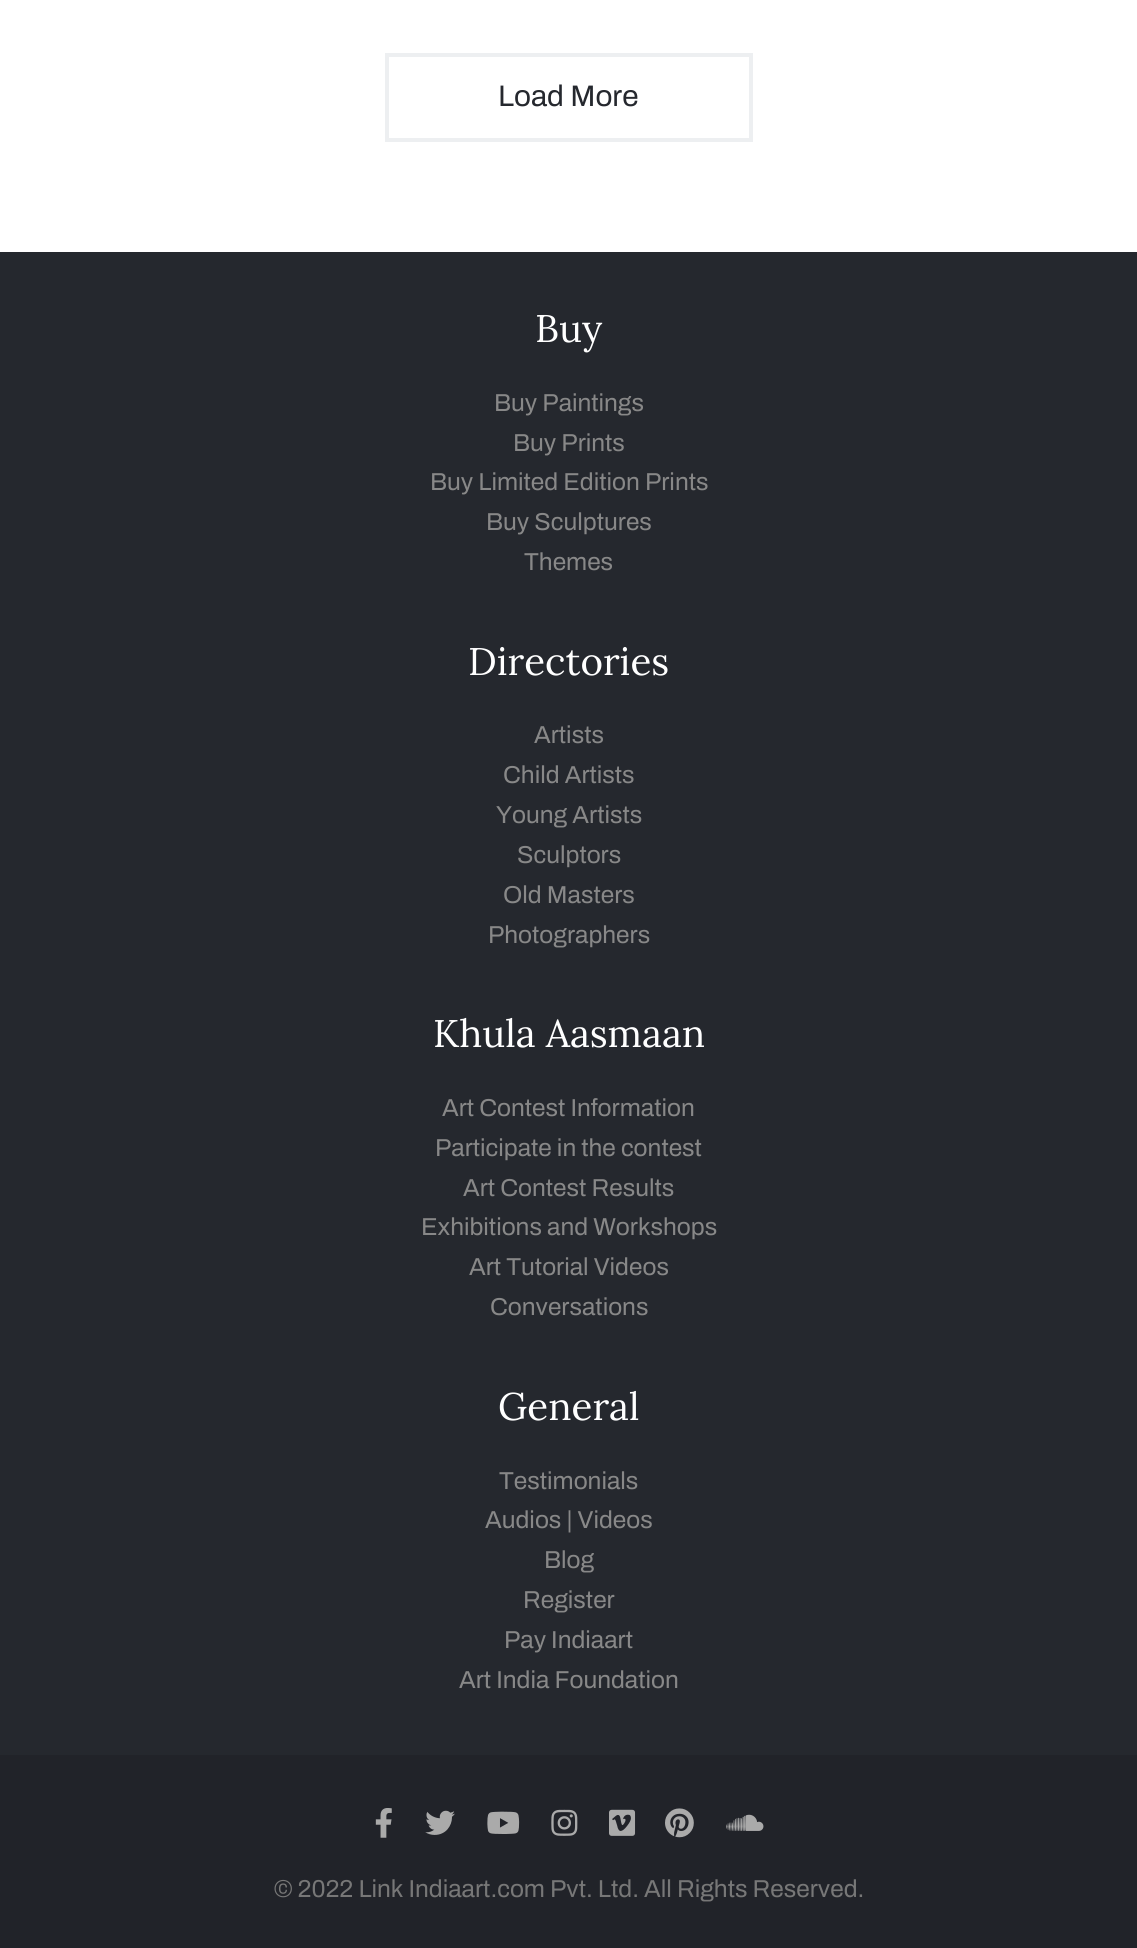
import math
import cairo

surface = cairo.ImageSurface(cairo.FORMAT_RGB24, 1137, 1948)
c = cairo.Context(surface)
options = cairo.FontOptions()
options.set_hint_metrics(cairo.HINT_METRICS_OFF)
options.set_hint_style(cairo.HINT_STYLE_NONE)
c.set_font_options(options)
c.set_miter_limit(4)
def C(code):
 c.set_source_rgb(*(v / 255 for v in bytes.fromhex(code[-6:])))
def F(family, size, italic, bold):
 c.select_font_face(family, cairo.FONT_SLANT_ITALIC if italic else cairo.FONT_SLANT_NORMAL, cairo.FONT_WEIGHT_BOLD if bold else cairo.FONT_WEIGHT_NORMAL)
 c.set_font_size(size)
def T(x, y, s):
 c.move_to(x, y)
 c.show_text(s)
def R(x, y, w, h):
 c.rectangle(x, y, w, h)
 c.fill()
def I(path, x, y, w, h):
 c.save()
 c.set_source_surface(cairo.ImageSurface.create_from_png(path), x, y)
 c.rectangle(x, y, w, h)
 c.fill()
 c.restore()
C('ffffff')
c.paint()
c.rectangle(387,55,364,85)
C('edeff1')
c.set_line_width(4)
c.stroke()
F('Archivo',29.75,0,0)
C('25282e')
T(498,106,'Load More')
R(0,252,1137,1503)
F('Lora',38.5,0,0)
C('ffffff')
T(535,342,'Buy')
F('Archivo',24.5,0,0)
C('888888')
T(494,411,'Buy Paintings')
T(513,451,'Buy Prints')
T(430,490,'Buy Limited Edition Prints')
T(486,530,'Buy Sculptures')
T(524,570,'Themes')
F('Lora',38.5,0,0)
C('ffffff')
T(468,675,'Directories')
F('Archivo',24.5,0,0)
C('888888')
T(534,743,'Artists')
T(503,783,'Child Artists')
T(496,823,'Young Artists')
T(517,863,'Sculptors')
T(503,903,'Old Masters')
T(488,943,'Photographers')
F('Lora',38.5,0,0)
C('ffffff')
T(433,1047,'Khula Aasmaan')
F('Archivo',24.5,0,0)
C('888888')
T(442,1116,'Art Contest Information')
T(435,1156,'Participate in the contest')
T(463,1196,'Art Contest Results')
T(421,1235,'Exhibitions and Workshops')
T(469,1275,'Art Tutorial Videos')
T(490,1315,'Conversations')
F('Lora',38.5,0,0)
C('ffffff')
T(498,1420,'General')
F('Archivo',24.5,0,0)
C('888888')
T(499,1489,'Testimonials')
T(485,1528,'Audios | Videos')
T(544,1568,'Blog')
T(523,1608,'Register')
T(504,1648,'Pay Indiaart')
T(459,1688,'Art India Foundation')
C('212329')
R(0,1755,1137,193)
I('1.png',375,1808,17,30)
I('2.png',425,1810,30,25)
I('3.png',487,1811,33,23)
I('4.png',551,1809,27,27)
I('5.png',609,1809,27,27)
I('6.png',665,1808,29,30)
I('7.png',726,1814,38,17)
C('777777')
T(274,1897,'© 2022 Link Indiaart.com Pvt. Ltd. All Rights Reserved.')
surface.write_to_png('o.png')
